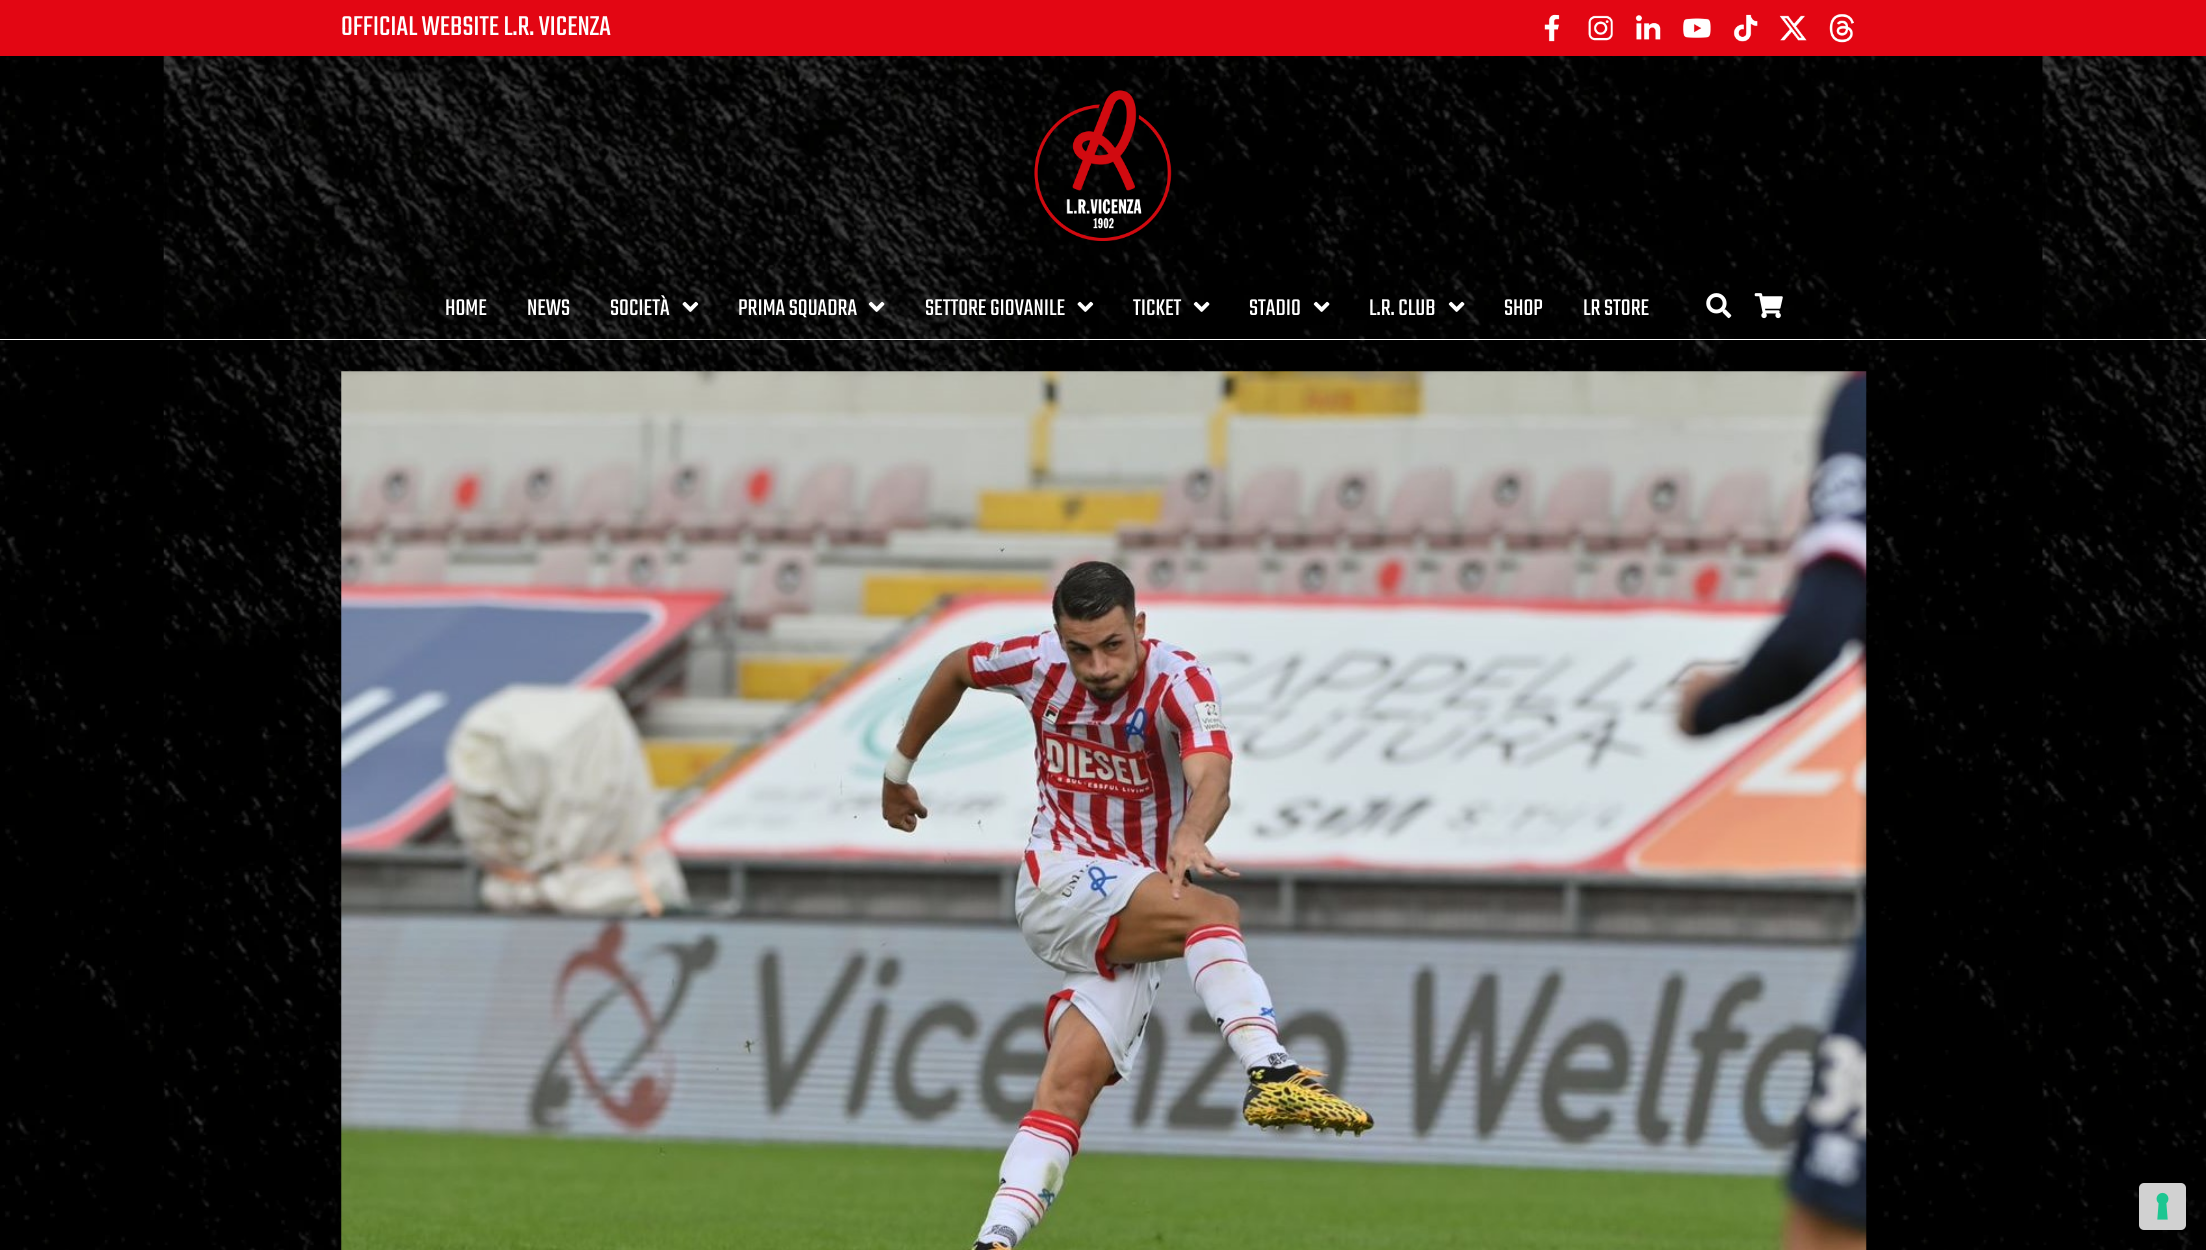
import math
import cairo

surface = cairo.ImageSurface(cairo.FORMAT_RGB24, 2206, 1250)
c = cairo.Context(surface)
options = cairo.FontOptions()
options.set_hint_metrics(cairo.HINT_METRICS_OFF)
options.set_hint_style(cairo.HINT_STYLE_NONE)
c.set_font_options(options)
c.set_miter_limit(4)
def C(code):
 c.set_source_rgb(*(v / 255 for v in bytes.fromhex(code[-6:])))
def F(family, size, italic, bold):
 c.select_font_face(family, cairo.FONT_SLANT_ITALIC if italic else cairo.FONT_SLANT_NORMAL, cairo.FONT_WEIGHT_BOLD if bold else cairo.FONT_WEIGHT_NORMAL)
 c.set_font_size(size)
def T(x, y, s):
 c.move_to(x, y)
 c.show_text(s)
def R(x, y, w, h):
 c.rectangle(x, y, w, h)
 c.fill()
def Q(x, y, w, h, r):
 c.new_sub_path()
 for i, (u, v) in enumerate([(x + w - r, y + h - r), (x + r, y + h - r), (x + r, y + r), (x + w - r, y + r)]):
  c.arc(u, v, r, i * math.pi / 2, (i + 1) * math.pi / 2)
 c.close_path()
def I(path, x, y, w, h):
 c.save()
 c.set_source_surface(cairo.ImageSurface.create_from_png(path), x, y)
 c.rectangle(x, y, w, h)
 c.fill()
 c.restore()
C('ffffff')
c.paint()
I('1.png',0,56,2206,1194)
C('e30613')
R(0,0,2206,56)
F('Teko',30,0,0)
C('ffffff')
T(341,35,'OFFICIAL WEBSITE L.R. VICENZA')
I('2.png',1544,14,16,28)
I('3.png',1588,15,25,26)
I('4.png',1635,15,26,25)
I('5.png',1683,18,28,20)
I('6.png',1733,14,25,28)
I('7.png',1779,15,28,26)
I('8.png',1829,14,25,29)
I('9.png',1034,90,138,151)
F('Teko',25,0,0)
T(445,315,'HOME')
T(527,315,'NEWS')
T(610,315,'SOCIETÀ')
I('10.png',682,301,17,11)
T(738,315,'PRIMA SQUADRA')
I('11.png',868,301,17,11)
T(925,315,'SETTORE GIOVANILE')
I('12.png',1077,301,17,11)
T(1133,315,'TICKET')
I('13.png',1193,301,17,11)
T(1249,315,'STADIO')
I('14.png',1313,301,17,11)
T(1369,315,'L.R. CLUB')
I('15.png',1448,301,17,11)
T(1504,315,'SHOP')
T(1583,315,'LR STORE')
I('16.png',1706,293,26,26)
I('17.png',1754,293,29,26)
R(0,339,2206,1)
I('18.png',341,371,1526,879)
C('d1d1d1')
Q(2139,1183,47,47,5)
c.fill()
I('19.png',2156,1192,13,28)
surface.write_to_png('o.png')
